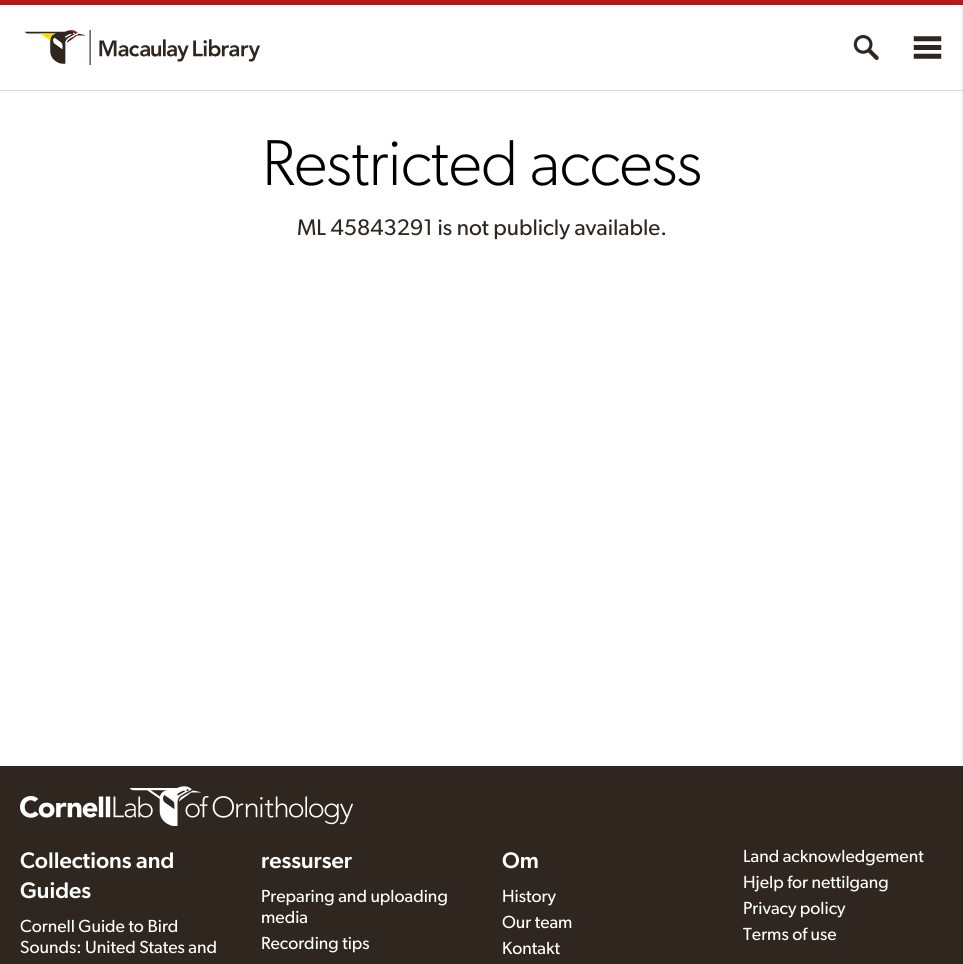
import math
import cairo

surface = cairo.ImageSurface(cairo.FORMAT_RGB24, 963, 964)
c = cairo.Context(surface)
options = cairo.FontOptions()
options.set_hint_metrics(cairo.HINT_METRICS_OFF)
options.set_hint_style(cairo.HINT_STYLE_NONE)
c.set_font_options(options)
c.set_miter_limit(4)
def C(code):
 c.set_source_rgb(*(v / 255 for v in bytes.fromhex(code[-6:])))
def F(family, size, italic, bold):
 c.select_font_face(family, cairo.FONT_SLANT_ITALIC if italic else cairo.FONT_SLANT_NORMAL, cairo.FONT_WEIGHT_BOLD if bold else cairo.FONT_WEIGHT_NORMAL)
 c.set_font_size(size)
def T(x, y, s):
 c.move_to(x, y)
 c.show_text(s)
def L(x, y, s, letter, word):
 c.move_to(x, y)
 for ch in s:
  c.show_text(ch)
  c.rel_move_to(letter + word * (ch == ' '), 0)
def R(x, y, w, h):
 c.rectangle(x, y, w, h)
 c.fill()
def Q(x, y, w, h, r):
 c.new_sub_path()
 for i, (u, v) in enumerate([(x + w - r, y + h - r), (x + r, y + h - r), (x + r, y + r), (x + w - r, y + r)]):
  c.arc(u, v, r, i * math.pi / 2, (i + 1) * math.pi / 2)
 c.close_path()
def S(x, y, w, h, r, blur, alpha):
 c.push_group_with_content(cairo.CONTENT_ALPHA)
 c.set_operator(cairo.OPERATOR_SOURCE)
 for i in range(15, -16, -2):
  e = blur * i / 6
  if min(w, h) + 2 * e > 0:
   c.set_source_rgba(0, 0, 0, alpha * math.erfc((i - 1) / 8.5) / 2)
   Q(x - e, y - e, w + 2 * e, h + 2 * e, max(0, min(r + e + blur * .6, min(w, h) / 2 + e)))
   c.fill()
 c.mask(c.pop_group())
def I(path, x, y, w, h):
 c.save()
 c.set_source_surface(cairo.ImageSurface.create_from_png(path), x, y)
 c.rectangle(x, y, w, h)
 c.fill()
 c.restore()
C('ffffff')
c.paint()
C('b31b1b')
R(0,0,963,5)
C('dbdbd9')
R(0,90,963,1)
I('1.png',25,30,235,35)
I('2.png',853,35,26,25)
I('3.png',913,36,29,23)
C('2e261f')
R(0,766,963,198)
C('000000')
S(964,3,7,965,0,2.5,.2)
F('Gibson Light',65,0,0)
C('000000')
L(262,185,'Restricted access',-.6,0)
F('Gibson',22.6,0,0)
C('2e261f')
T(297,235,'ML 45843291 is not publicly available.')
I('4.png',20,786,333,40)
F('Gibson Medium',22.6,0,0)
C('ffffff')
T(20,868,'Collections and')
T(20,898,'Guides')
F('Gibson',17.6,0,0)
T(20,932,'Cornell Guide to Bird')
T(20,953,'Sounds: United States and')
F('Gibson Medium',22.6,0,0)
T(261,868,'ressurser')
F('Gibson',17.6,0,0)
T(261,902,'Preparing and uploading')
T(261,923,'media')
T(261,949,'Recording tips')
F('Gibson Medium',22.6,0,0)
T(502,868,'Om')
F('Gibson',17.6,0,0)
T(502,902,'History')
T(502,928,'Our team')
T(502,954,'Kontakt')
T(743,862,'Land acknowledgement')
T(743,888,'Hjelp for nettilgang')
T(743,914,'Privacy policy')
T(743,940,'Terms of use')
surface.write_to_png('o.png')
